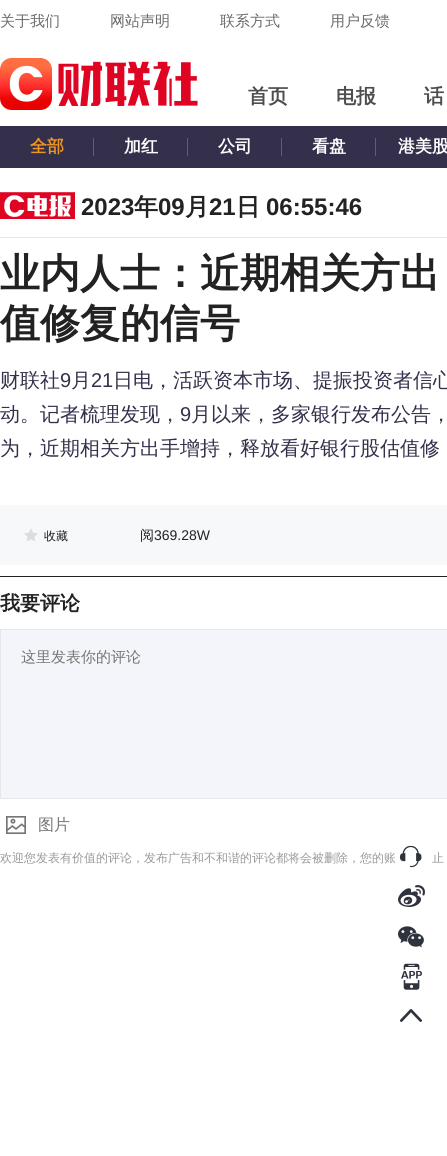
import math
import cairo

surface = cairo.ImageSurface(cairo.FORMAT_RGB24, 447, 1156)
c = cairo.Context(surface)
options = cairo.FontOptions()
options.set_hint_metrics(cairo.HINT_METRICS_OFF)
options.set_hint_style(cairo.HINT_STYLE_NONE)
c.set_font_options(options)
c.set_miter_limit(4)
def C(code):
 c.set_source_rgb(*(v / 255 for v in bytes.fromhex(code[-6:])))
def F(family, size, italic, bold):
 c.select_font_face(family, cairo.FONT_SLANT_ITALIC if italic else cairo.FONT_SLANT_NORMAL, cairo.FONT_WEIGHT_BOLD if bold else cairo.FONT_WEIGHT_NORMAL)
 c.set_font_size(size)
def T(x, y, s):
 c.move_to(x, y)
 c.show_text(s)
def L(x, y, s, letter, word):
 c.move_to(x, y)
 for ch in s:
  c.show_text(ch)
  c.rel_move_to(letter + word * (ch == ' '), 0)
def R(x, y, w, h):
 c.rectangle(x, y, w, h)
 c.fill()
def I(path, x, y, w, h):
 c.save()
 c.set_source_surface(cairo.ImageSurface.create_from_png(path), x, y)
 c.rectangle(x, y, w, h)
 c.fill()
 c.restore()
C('ffffff')
c.paint()
F('WenQuanYi Zen Hei Medium',15,0,0)
C('6a6a6a')
T(0,26,'关于我们')
T(110,26,'网站声明')
T(220,26,'联系方式')
T(330,26,'用户反馈')
I('1.png',0,58,198,52)
F('WenQuanYi Zen Hei',20,0,1)
C('4d4d4d')
T(248,103,'首页')
T(336,103,'电报')
T(424,103,'话')
C('34304b')
R(0,126,447,42)
F('WenQuanYi Zen Hei',17,0,1)
C('ef9524')
T(30,152,'全部')
C('5f5f6a')
R(93,138,1,18)
C('ffffff')
T(124,152,'加红')
C('5f5f6a')
R(187,138,1,18)
C('ffffff')
T(218,152,'公司')
C('5f5f6a')
R(281,138,1,18)
C('ffffff')
T(312,152,'看盘')
C('5f5f6a')
R(375,138,1,18)
C('ffffff')
T(398,152,'港美股')
C('e6e7ea')
R(0,237,447,1)
I('2.png',0,192,75,27)
F('Liberation Sans',24,0,1)
C('222222')
T(81,215,'2023')
F('WenQuanYi Zen Hei',24,0,1)
T(134,215,'年')
F('Liberation Sans',24,0,1)
T(158,215,'09')
F('WenQuanYi Zen Hei',24,0,1)
T(185,215,'月')
F('Liberation Sans',24,0,1)
T(209,215,'21')
F('WenQuanYi Zen Hei',24,0,1)
T(236,215,'日')
F('Liberation Sans',24,0,1)
T(266,215,'06:55:46')
F('WenQuanYi Zen Hei',40,0,1)
L(0,287,'业内人士：近期相关方出',0,-1)
T(0,337,'值修复的信号')
F('WenQuanYi Zen Hei Medium',20,0,0)
C('34304b')
T(0,387,'财联社')
F('Liberation Sans',20,0,0)
T(60,387,'9')
F('WenQuanYi Zen Hei Medium',20,0,0)
T(71,387,'月')
F('Liberation Sans',20,0,0)
T(91,387,'21')
F('WenQuanYi Zen Hei Medium',20,0,0)
T(113,387,'日电，活跃资本市场、提振投资者信心')
T(0,421,'动。记者梳理发现，')
F('Liberation Sans',20,0,0)
T(180,421,'9')
F('WenQuanYi Zen Hei Medium',20,0,0)
T(191,421,'月以来，多家银行发布公告，')
T(0,455,'为，近期相关方出手增持，释放看好银行股估值修')
C('f6f8f9')
R(0,505,447,60)
I('3.png',24,528,14,14)
F('WenQuanYi Zen Hei Medium',12,0,0)
C('222222')
T(44,540,'收藏')
F('WenQuanYi Zen Hei Medium',14,0,0)
T(140,540,'阅')
F('Liberation Sans',14,0,0)
T(154,540,'369.28W')
R(0,576,447,1)
F('WenQuanYi Zen Hei',20,0,1)
T(0,610,'我要评论')
C('f4f5fa')
c.rectangle(.5,629.5,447,169)
c.fill_preserve()
C('e6e7ea')
c.set_line_width(1)
c.stroke()
F('WenQuanYi Zen Hei Medium',15,0,0)
C('757575')
T(21,662,'这里发表你的评论')
I('4.png',6,816,20,18)
F('WenQuanYi Zen Hei Medium',16,0,0)
T(38,830,'图片')
F('WenQuanYi Zen Hei Medium',12,0,0)
C('999999')
T(0,862,'欢迎您发表有价值的评论，发布广告和不和谐的评论都将会被删除，您的账')
T(432,862,'止')
I('5.png',395,845,32,23)
I('6.png',398,885,27,22)
I('7.png',398,926,26,22)
I('8.png',401,963,21,27)
I('9.png',400,1009,22,13)
surface.write_to_png('o.png')
